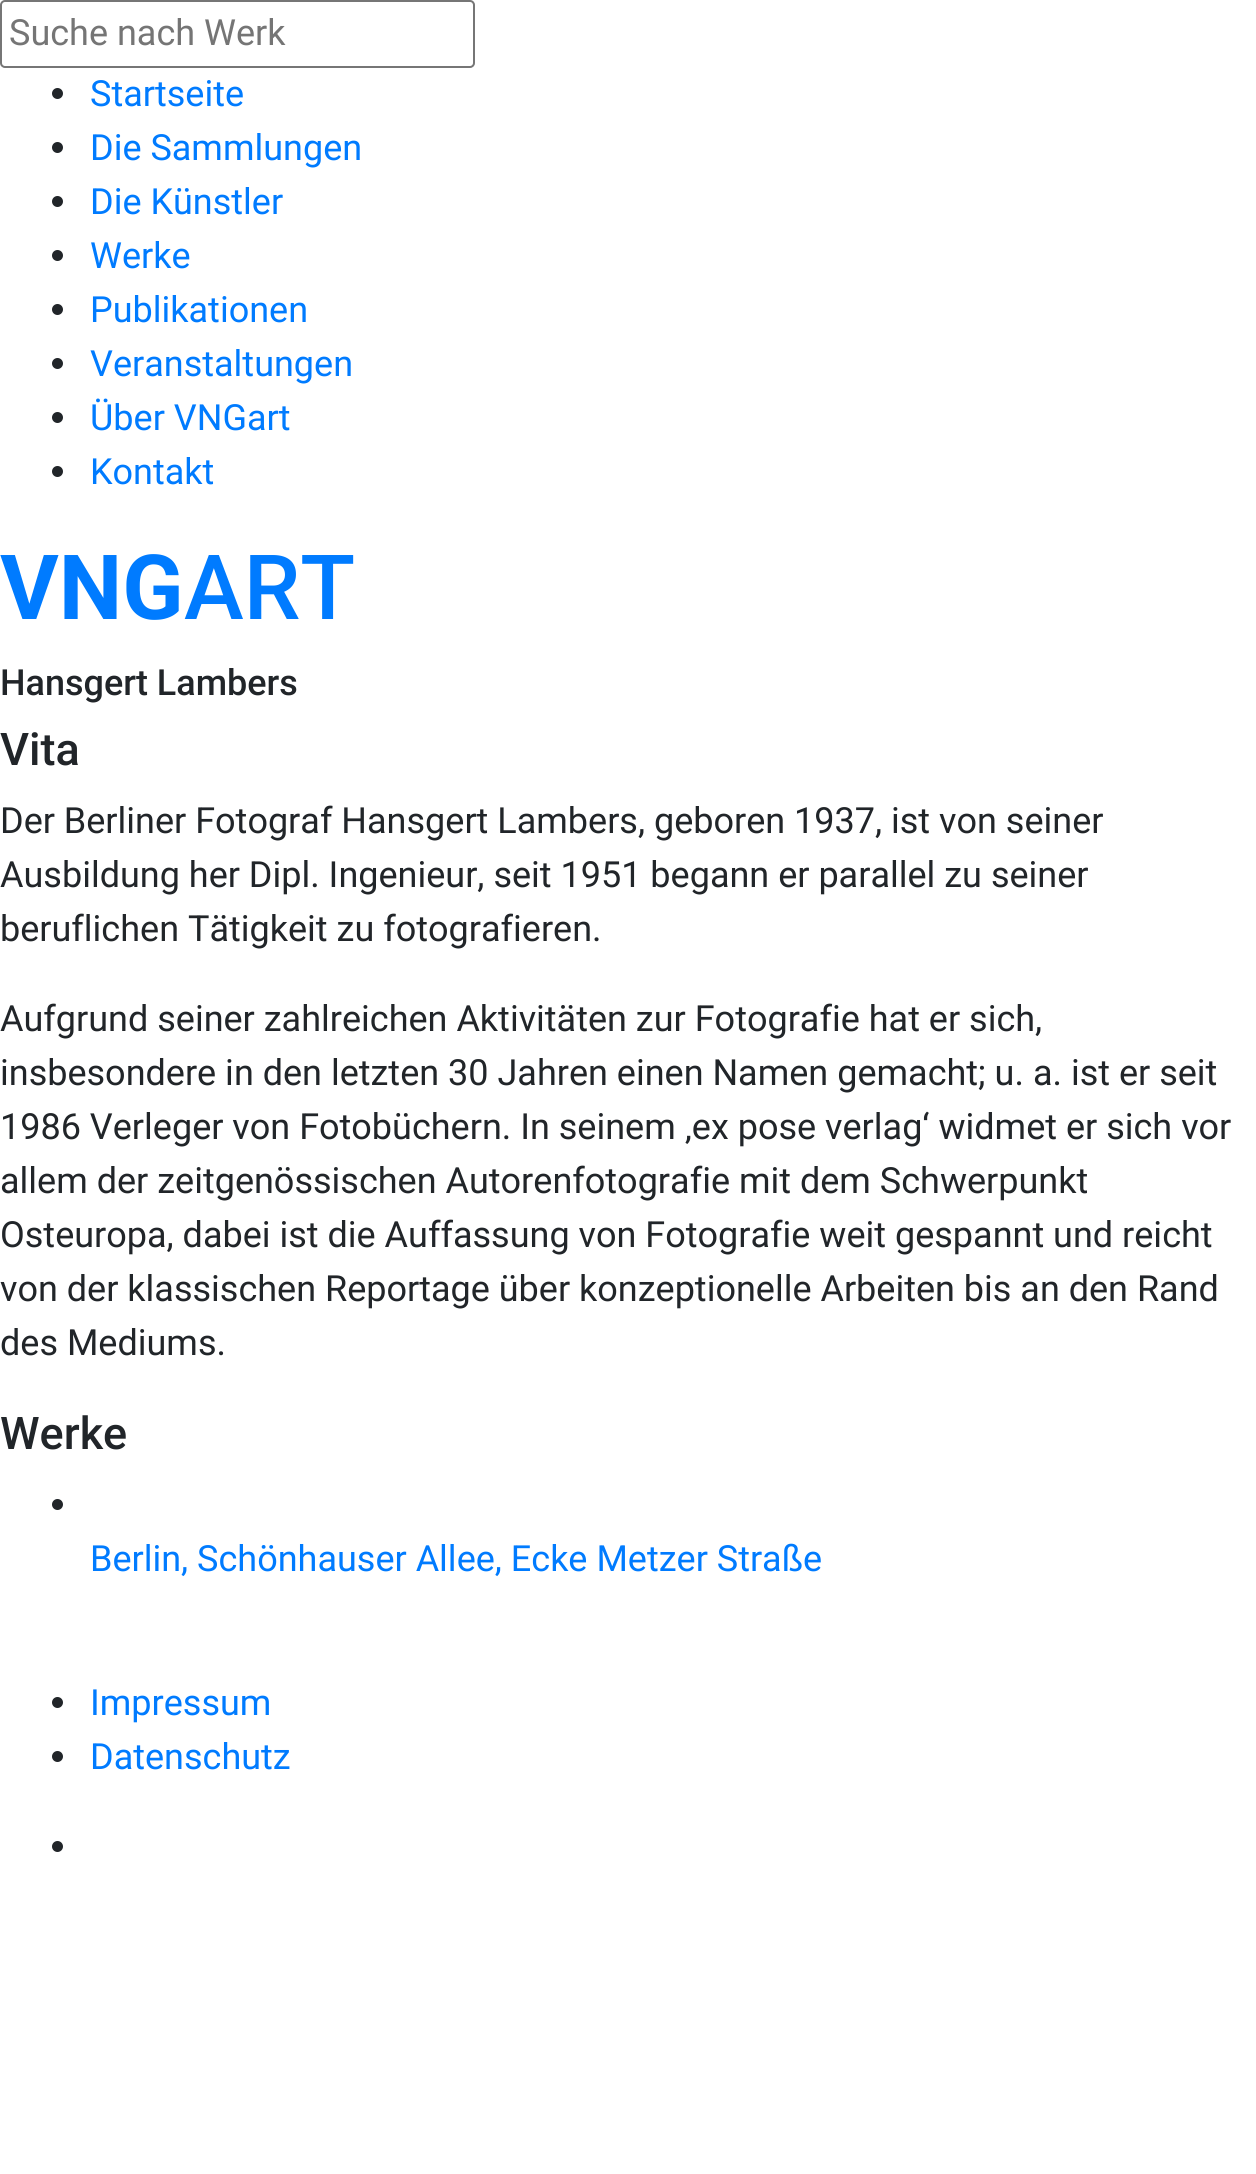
import math
import cairo

surface = cairo.ImageSurface(cairo.FORMAT_RGB24, 1256, 2174)
c = cairo.Context(surface)
options = cairo.FontOptions()
options.set_hint_metrics(cairo.HINT_METRICS_OFF)
options.set_hint_style(cairo.HINT_STYLE_NONE)
c.set_font_options(options)
c.set_miter_limit(4)
def C(code):
 c.set_source_rgb(*(v / 255 for v in bytes.fromhex(code[-6:])))
def F(family, size, italic, bold):
 c.select_font_face(family, cairo.FONT_SLANT_ITALIC if italic else cairo.FONT_SLANT_NORMAL, cairo.FONT_WEIGHT_BOLD if bold else cairo.FONT_WEIGHT_NORMAL)
 c.set_font_size(size)
def T(x, y, s):
 c.move_to(x, y)
 c.show_text(s)
def Q(x, y, w, h, r):
 c.new_sub_path()
 for i, (u, v) in enumerate([(x + w - r, y + h - r), (x + r, y + h - r), (x + r, y + r), (x + w - r, y + r)]):
  c.arc(u, v, r, i * math.pi / 2, (i + 1) * math.pi / 2)
 c.close_path()
C('ffffff')
c.paint()
Q(1,1,473,66,4)
C('767676')
c.stroke()
F('Roboto',36,0,0)
C('757575')
T(9,45,'Suche nach Werk')
C('212529')
c.new_path()
c.arc(57.5,93.5,5.5,0,2 * math.pi)
c.fill()
C('007bff')
T(90,106,'Startseite')
C('212529')
c.new_path()
c.arc(57.5,147.5,5.5,0,2 * math.pi)
c.fill()
C('007bff')
T(90,160,'Die Sammlungen')
C('212529')
c.new_path()
c.arc(57.5,201.5,5.5,0,2 * math.pi)
c.fill()
C('007bff')
T(90,214,'Die Künstler')
C('212529')
c.new_path()
c.arc(57.5,255.5,5.5,0,2 * math.pi)
c.fill()
C('007bff')
T(90,268,'Werke')
C('212529')
c.new_path()
c.arc(57.5,309.5,5.5,0,2 * math.pi)
c.fill()
C('007bff')
T(90,322,'Publikationen')
C('212529')
c.new_path()
c.arc(57.5,363.5,5.5,0,2 * math.pi)
c.fill()
C('007bff')
T(90,376,'Veranstaltungen')
C('212529')
c.new_path()
c.arc(57.5,417.5,5.5,0,2 * math.pi)
c.fill()
C('007bff')
T(90,430,'Über VNGart')
C('212529')
c.new_path()
c.arc(57.5,471.5,5.5,0,2 * math.pi)
c.fill()
C('007bff')
T(90,484,'Kontakt')
F('Roboto',90,0,1)
T(0,619,'VNG')
F('Roboto Medium',90,0,0)
T(184,619,'ART')
F('Roboto Medium',36,0,0)
C('212529')
T(0,695,'Hansgert Lambers')
F('Roboto Medium',45,0,0)
T(0,765,'Vita')
F('Roboto',36,0,0)
T(0,833,'Der Berliner Fotograf Hansgert Lambers, geboren 1937, ist von seiner')
T(0,887,'Ausbildung her Dipl. Ingenieur, seit 1951 begann er parallel zu seiner')
T(0,941,'beruflichen Tätigkeit zu fotografieren.')
T(0,1031,'Aufgrund seiner zahlreichen Aktivitäten zur Fotografie hat er sich,')
T(0,1085,'insbesondere in den letzten 30 Jahren einen Namen gemacht; u. a. ist er seit')
T(0,1139,'1986 Verleger von Fotobüchern. In seinem ‚ex pose verlag‘ widmet er sich vor')
T(0,1193,'allem der zeitgenössischen Autorenfotografie mit dem Schwerpunkt')
T(0,1247,'Osteuropa, dabei ist die Auffassung von Fotografie weit gespannt und reicht')
T(0,1301,'von der klassischen Reportage über konzeptionelle Arbeiten bis an den Rand')
T(0,1355,'des Mediums.')
F('Roboto Medium',45,0,0)
T(0,1449,'Werke')
c.new_path()
c.arc(57.5,1504.5,5.5,0,2 * math.pi)
c.fill()
F('Roboto',36,0,0)
C('007bff')
T(90,1571,'Berlin, Schönhauser Allee, Ecke Metzer Straße')
C('212529')
c.new_path()
c.arc(57.5,1702.5,5.5,0,2 * math.pi)
c.fill()
C('007bff')
T(90,1715,'Impressum')
C('212529')
c.new_path()
c.arc(57.5,1756.5,5.5,0,2 * math.pi)
c.fill()
C('007bff')
T(90,1769,'Datenschutz')
C('212529')
c.new_path()
c.arc(57.5,1846.5,5.5,0,2 * math.pi)
c.fill()
surface.write_to_png('o.png')
